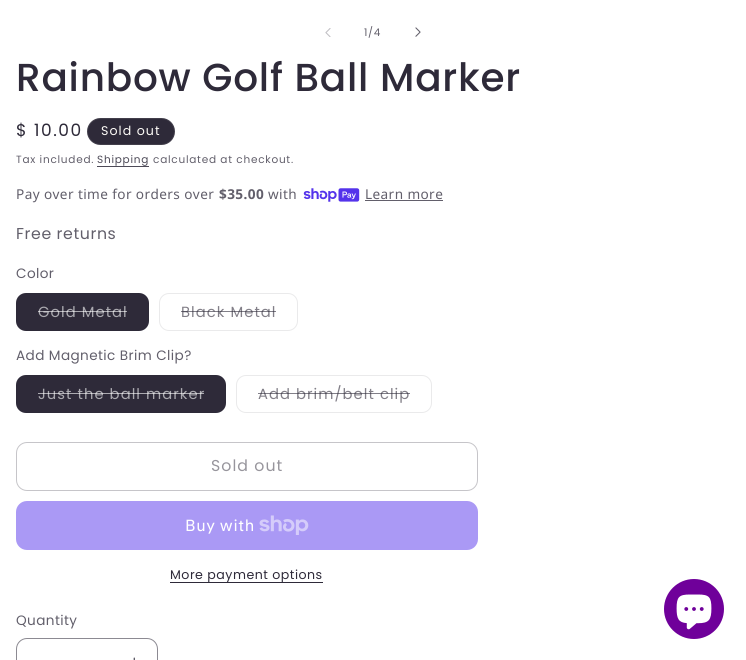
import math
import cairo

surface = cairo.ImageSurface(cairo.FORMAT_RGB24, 746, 660)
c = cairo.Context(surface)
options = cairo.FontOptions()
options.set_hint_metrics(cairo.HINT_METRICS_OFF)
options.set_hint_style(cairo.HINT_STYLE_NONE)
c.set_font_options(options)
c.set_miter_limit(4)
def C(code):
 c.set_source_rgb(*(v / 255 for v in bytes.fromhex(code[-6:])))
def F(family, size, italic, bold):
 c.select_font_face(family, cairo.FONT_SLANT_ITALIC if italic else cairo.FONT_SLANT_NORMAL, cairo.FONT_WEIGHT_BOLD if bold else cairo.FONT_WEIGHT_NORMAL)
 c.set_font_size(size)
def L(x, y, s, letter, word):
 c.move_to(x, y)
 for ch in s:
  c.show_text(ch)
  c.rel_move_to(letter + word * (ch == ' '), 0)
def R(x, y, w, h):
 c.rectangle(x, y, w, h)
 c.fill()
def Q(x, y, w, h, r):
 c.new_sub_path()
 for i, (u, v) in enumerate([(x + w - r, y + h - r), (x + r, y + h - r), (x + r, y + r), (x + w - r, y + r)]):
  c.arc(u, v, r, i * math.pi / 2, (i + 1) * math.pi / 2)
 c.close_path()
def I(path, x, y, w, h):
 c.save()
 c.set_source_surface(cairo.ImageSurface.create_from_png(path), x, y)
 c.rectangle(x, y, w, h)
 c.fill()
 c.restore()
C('ffffff')
c.paint()
I('1.png',325,28,6,9)
F('Poppins',10.5,0,0)
C('625f6b')
L(364,36,'1/4',.75,0)
I('2.png',415,27,6,10)
F('Poppins Medium',39,0,0)
C('2e2a39')
L(16,91,'Rainbow Golf Ball Marker',.75,0)
F('Poppins',17,0,0)
L(16,136,'$ 10.00',1.5,0)
Q(87,118,88,27,13.5)
c.fill()
Q(87.5,118.5,87,26,13)
c.set_source_rgba(0.992,0.984,0.969,0.1)
c.set_line_width(1)
c.stroke()
F('Poppins',12.6,0,0)
C('fdfbf7')
L(101,135,'Sold out',1.05,0)
F('Poppins',10.5,0,0)
C('625f6b')
L(16,163,'Tax included.',.75,0)
C('4d4a57')
L(97,163,'Shipping',.75,0)
R(97,166,52,1)
C('625f6b')
L(153,163,'calculated at checkout.',.75,0)
F('Noto Sans',13.6,0,0)
L(16,199,'Pay over time for orders over',.4,0)
F('Noto Sans',13.6,0,1)
L(219,199,'$35.00',.4,0)
F('Noto Sans',13.6,0,0)
L(268,199,'with',.4,0)
I('3.png',303,188,57,14)
L(365,199,'Learn more',.4,0)
R(365,200,78,1)
F('Poppins',15.75,0,0)
L(16,239,'Free returns',.6,0)
F('Poppins',13.6,0,0)
L(16,278,'Color',.4,0)
C('2e2a39')
Q(16,293,133,38,10)
c.fill()
Q(16.5,293.5,132,37,9.5)
c.set_source_rgba(0.18,0.165,0.224,0.1)
c.stroke()
F('Poppins',14.75,0,0)
C('abaab0')
L(38,317,'Gold Metal',1.05,0)
c.set_source_rgba(1,1,1,0.6)
R(38,311,89,1)
Q(159.5,293.5,138,37,9.5)
C('eaeaeb')
c.stroke()
C('827f88')
L(181,317,'Black Metal',1.05,0)
c.set_source_rgba(0.18,0.165,0.224,0.6)
R(181,311,95,1)
F('Poppins',13.6,0,0)
C('625f6b')
L(16,360,'Add Magnetic Brim Clip?',.4,0)
C('2e2a39')
Q(16,375,210,38,10)
c.fill()
Q(16.5,375.5,209,37,9.5)
c.set_source_rgba(0.18,0.165,0.224,0.1)
c.stroke()
F('Poppins',14.75,0,0)
C('abaab0')
L(38,399,'Just the ball marker',1.05,0)
c.set_source_rgba(1,1,1,0.6)
R(38,393,166,1)
Q(236.5,375.5,195,37,9.5)
C('eaeaeb')
c.stroke()
C('827f88')
L(258,399,'Add brim/belt clip',1.05,0)
c.set_source_rgba(0.18,0.165,0.224,0.6)
R(258,393,152,1)
Q(16.5,442.5,461,48,10.5)
C('c6c5c9')
c.stroke()
F('Poppins',15.75,0,0)
C('97959c')
L(211,471,'Sold out',1.05,0)
C('aa99f5')
Q(16,501,462,49,11)
c.fill()
F('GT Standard',16,0,0)
C('ffffff')
L(185,531,'Buy with',.6,0)
I('4.png',259,515,50,20)
C('2e2a39')
R(170,582,153,1)
F('Poppins',12.6,0,0)
L(170,579,'More payment options',.5,0)
F('Poppins',13.6,0,0)
C('625f6b')
L(16,625,'Quantity',.4,0)
I('5.png',133,657,2,3)
Q(16.5,638.5,141,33,10.5)
C('8c8a92')
c.stroke()
C('6f009a')
c.arc(694,609,30,0,2 * math.pi)
c.fill()
I('6.png',676,594,36,36)
surface.write_to_png('o.png')
